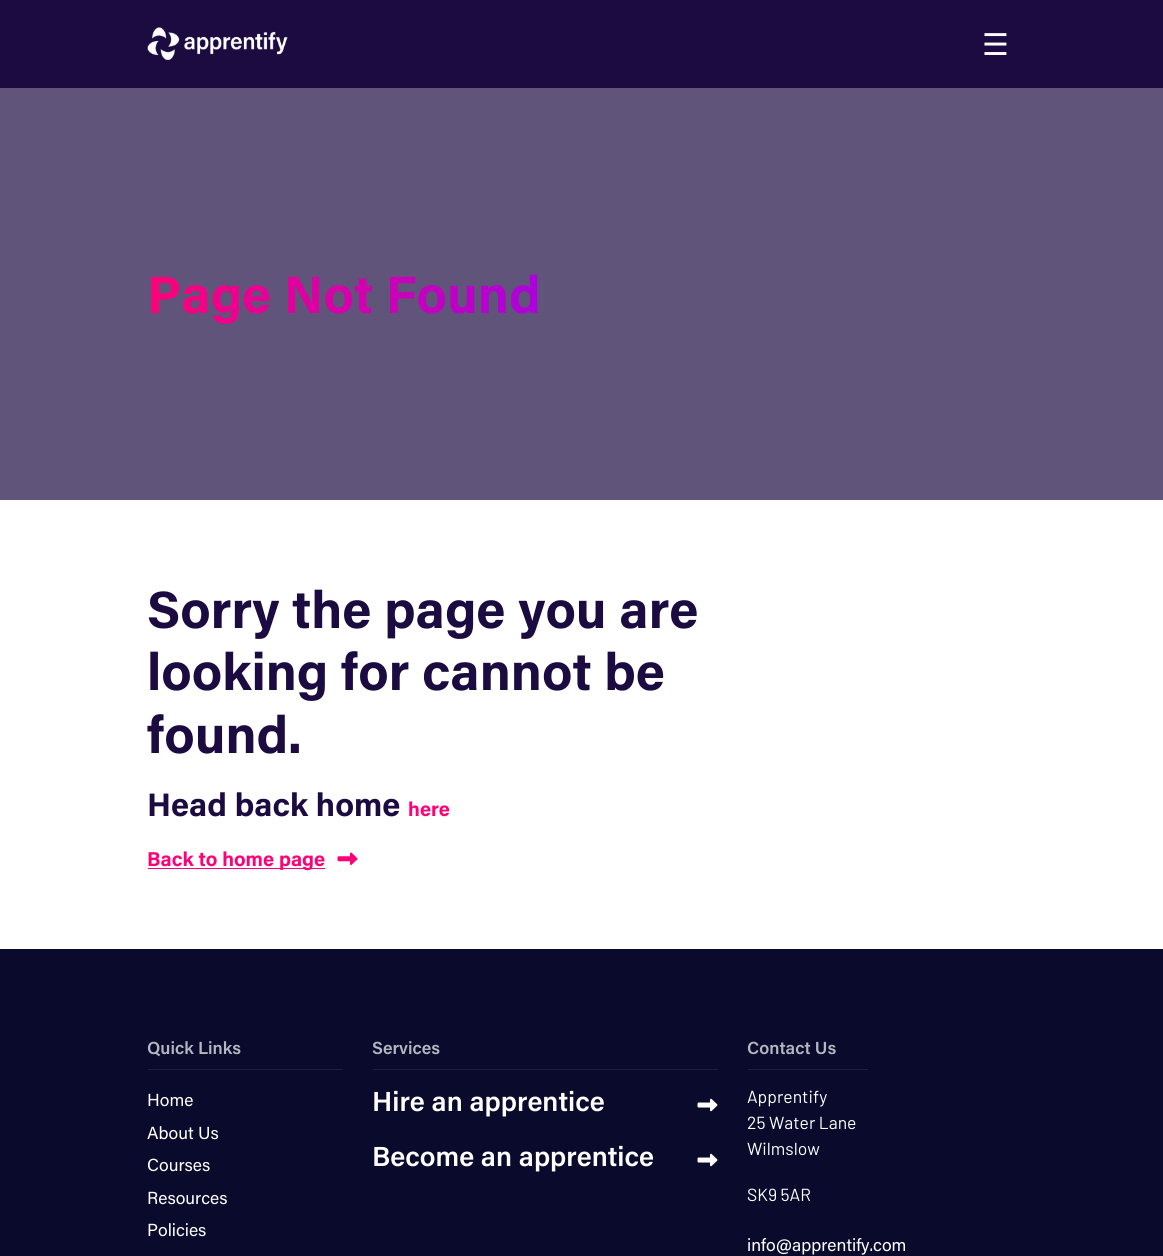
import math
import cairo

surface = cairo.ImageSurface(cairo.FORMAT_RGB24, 1163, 1256)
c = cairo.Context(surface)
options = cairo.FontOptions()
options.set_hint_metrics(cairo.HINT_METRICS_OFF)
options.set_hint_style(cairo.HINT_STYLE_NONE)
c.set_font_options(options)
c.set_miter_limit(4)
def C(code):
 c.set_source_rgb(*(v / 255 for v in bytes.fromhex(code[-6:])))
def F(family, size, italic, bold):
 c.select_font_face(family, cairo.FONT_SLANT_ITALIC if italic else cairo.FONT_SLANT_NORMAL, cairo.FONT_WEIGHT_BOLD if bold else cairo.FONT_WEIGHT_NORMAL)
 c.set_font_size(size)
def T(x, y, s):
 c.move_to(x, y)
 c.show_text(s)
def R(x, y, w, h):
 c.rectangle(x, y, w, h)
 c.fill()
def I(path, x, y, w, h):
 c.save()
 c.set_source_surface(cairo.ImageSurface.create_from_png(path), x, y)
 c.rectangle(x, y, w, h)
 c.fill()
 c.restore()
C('ffffff')
c.paint()
C('1b0b41')
R(0,0,1163,88)
I('1.png',147,27,141,33)
F('DejaVu Sans',30,0,0)
C('ffffff')
T(982,55,'☰')
C('60547a')
R(0,88,1163,412)
F('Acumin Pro',52.5,0,1)
gradient = cairo.LinearGradient(147,291,540,291)
gradient.add_color_stop_rgba(0,1,0,0.467,1)
gradient.add_color_stop_rgba(1,0.675,0,0.867,1)
c.set_source(gradient)
T(147,313,'Page Not Found')
C('1b0b41')
T(147,628,'Sorry the page you are')
T(147,690,'looking for cannot be')
T(147,753,'found.')
F('Acumin Pro',32.5,0,1)
T(147,816,'Head back home')
F('Acumin Pro',20,0,1)
C('ff0077')
T(408,816,'here')
R(148,868,177,1)
T(147,866,'Back to home page')
I('2.png',337,852,21,13)
C('0a0a2d')
R(0,949,1163,307)
C('1f1f42')
R(148,1069,195,1)
F('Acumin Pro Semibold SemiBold',17.5,0,0)
C('b6b6c0')
T(147,1054,'Quick Links')
F('Acumin Pro',17.5,0,0)
C('ffffff')
T(147,1106,'Home')
T(147,1139,'About Us')
T(147,1171,'Courses')
T(147,1204,'Resources')
T(147,1236,'Policies')
C('1f1f42')
R(373,1069,345,1)
F('Acumin Pro Semibold SemiBold',17.5,0,0)
C('b6b6c0')
T(372,1054,'Services')
F('Acumin Pro Semibold SemiBold',27.5,0,0)
C('ffffff')
T(372,1111,'Hire an apprentice')
I('3.png',697,1098,21,14)
T(372,1166,'Become an apprentice')
I('3.png',697,1153,21,14)
C('1f1f42')
R(748,1069,120,1)
F('Acumin Pro Semibold SemiBold',17.5,0,0)
C('b6b6c0')
T(747,1054,'Contact Us')
F('Barlow',17.5,0,0)
C('ffffff')
T(747,1103,'Apprentify')
T(747,1129,'25 Water Lane')
T(747,1155,'Wilmslow')
T(747,1201,'SK9 5AR')
F('Acumin Pro',17.5,0,0)
T(747,1251,'info@apprentify.com')
surface.write_to_png('o.png')
